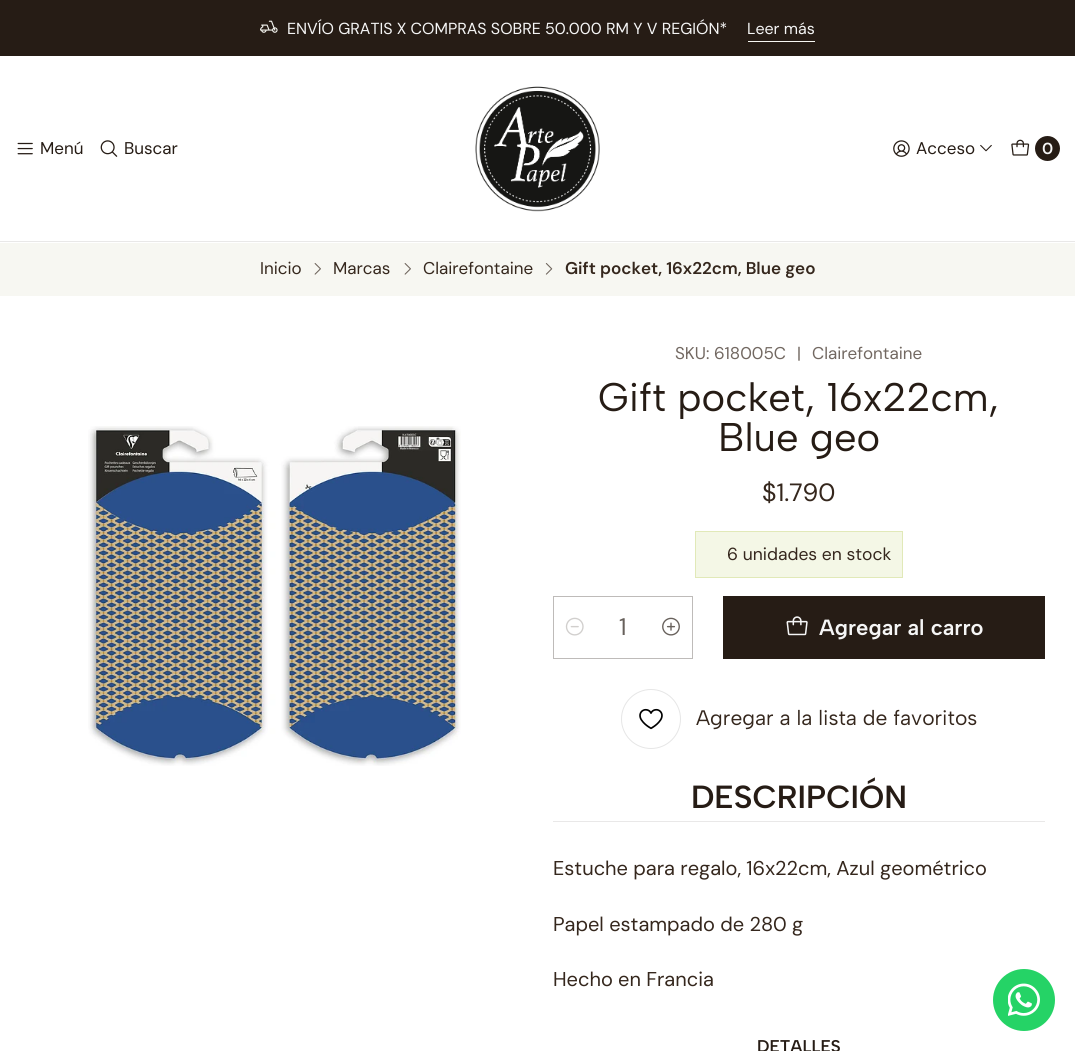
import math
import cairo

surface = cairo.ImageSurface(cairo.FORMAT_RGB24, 1075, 1051)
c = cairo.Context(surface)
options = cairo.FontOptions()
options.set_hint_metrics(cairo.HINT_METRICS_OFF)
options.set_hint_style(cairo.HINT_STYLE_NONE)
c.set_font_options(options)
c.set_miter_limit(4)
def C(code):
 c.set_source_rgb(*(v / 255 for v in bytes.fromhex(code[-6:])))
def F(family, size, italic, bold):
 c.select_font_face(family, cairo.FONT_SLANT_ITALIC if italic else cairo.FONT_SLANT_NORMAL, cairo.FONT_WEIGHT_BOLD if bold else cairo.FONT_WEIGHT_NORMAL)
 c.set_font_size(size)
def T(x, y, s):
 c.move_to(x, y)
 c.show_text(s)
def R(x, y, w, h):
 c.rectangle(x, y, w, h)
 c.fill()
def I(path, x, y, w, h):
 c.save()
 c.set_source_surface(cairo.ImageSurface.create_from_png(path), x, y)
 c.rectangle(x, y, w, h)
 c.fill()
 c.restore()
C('ffffff')
c.paint()
C('261c15')
R(0,0,1075,56)
I('1.png',260,20,18,13)
F('DM Sans',16,0,0)
C('f5f5f5')
T(287,34,'ENVÍO GRATIS X COMPRAS SOBRE 50.000 RM Y V REGIÓN*')
C('f7f7f2')
R(748,41,67,1)
C('f5f5f5')
T(747,34,'Leer más')
C('e9e8e8')
R(0,241,1075,1)
I('2.png',17,142,16,13)
F('DM Sans',17,0,0)
C('261c15')
T(40,154,'Menú')
I('3.png',100,140,18,17)
T(124,154,'Buscar')
I('4.png',475,86,125,126)
I('5.png',893,140,17,17)
T(916,154,'Acceso')
I('6.png',980,144,12,8)
I('7.png',1011,139,19,17)
c.arc(1047.5,148.5,12.5,0,2 * math.pi)
c.fill()
F('DM Sans SemiBold',16,0,0)
C('f5f5f5')
T(1042,154,'0')
C('f7f7f2')
R(0,243,1075,53)
F('DM Sans',17,0,0)
C('35271d')
T(260,274,'Inicio')
I('8.png',314,263,7,12)
T(333,274,'Marcas')
I('8.png',404,263,7,12)
T(423,274,'Clairefontaine')
I('9.png',545,263,8,12)
F('DM Sans SemiBold',17,0,0)
T(565,274,'Gift pocket, 16x22cm, Blue geo')
I('10.png',88,426,373,340)
F('DM Sans',17,0,0)
C('726861')
T(675,359,'SKU: 618005C')
T(797,359,'|')
T(812,359,'Clairefontaine')
F('Albert Sans',40,0,0)
C('261c15')
T(598,411,'Gift pocket, 16x22cm,')
T(718,451,'Blue geo')
F('DM Sans',25,0,0)
C('35271d')
T(762,501,'$1.790')
C('f4f7e6')
c.rectangle(695.5,531.5,207,46)
c.fill_preserve()
C('e1e9b8')
c.set_line_width(1)
c.stroke()
F('DM Sans',17.5,0,0)
C('35271d')
T(727,560,'6 unidades en stock')
c.rectangle(553.5,596.5,139,62)
C('bebbb9')
c.stroke()
I('11.png',565,617,19,19)
F('DM Sans',24,0,0)
C('67605b')
T(619,635,'1')
I('12.png',662,617,18,19)
C('261c15')
R(723,596,322,63)
I('13.png',786,616,22,20)
F('Albert Sans SemiBold',22,0,0)
C('f5f5f5')
T(819,635,'Agregar al carro')
c.new_path()
c.arc(651,719,29.5,0,2 * math.pi)
C('e6e6e6')
c.stroke()
I('14.png',639,708,24,22)
F('Albert Sans',21,0,0)
C('35271d')
T(696,725,'Agregar a la lista de favoritos')
C('e9e8e8')
R(553,821,492,1)
F('Albert Sans SemiBold',32,0,0)
C('261c15')
T(691,808,'DESCRIPCIÓN')
F('DM Sans',20,0,0)
C('35271d')
T(553,875,'Estuche para regalo, 16x22cm, Azul geométrico')
T(553,931,'Papel estampado de 280 g')
T(553,986,'Hecho en Francia')
F('Albert Sans SemiBold',17,0,0)
C('261c15')
T(757,1052,'DETALLES')
C('25d366')
c.new_path()
c.arc(1024,1000,31,0,2 * math.pi)
c.fill()
I('15.png',1008,983,32,33)
surface.write_to_png('o.png')
